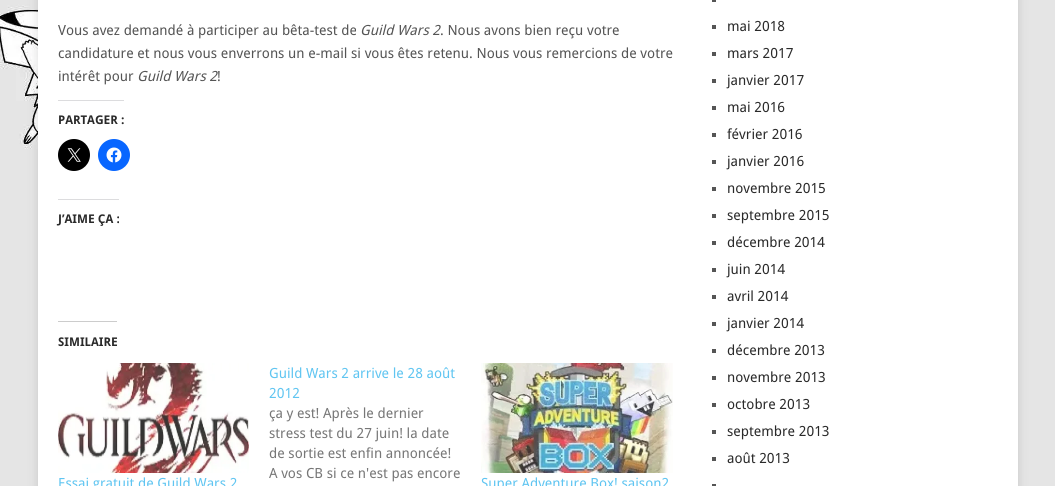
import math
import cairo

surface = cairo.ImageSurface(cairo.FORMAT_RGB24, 1055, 486)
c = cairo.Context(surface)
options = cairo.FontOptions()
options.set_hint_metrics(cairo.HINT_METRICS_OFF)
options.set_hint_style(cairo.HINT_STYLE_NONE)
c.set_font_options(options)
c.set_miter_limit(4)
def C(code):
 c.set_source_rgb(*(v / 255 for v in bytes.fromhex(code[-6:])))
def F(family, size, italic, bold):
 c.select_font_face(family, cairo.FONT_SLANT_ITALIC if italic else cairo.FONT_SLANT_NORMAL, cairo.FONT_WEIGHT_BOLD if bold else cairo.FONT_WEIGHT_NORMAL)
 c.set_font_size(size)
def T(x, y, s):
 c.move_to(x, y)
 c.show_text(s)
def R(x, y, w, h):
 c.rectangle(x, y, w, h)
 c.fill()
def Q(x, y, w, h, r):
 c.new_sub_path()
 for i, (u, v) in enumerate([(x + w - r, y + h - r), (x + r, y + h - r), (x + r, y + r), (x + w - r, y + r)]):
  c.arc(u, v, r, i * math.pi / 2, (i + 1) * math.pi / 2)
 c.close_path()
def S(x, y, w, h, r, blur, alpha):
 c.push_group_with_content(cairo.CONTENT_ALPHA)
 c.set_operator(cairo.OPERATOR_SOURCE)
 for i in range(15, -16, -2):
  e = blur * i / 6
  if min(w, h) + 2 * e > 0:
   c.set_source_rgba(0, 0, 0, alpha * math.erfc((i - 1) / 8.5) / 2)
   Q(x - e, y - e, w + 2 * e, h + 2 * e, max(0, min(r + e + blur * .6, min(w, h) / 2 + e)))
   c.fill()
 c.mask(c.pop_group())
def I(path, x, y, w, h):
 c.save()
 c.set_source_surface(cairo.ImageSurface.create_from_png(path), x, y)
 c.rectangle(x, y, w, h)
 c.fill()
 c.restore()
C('ffffff')
c.paint()
I('1.png',0,0,1055,486)
C('323232')
S(38,-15,980,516,0,5,.17)
C('ffffff')
R(38,0,980,486)
F('Droid Sans',14,0,0)
C('555555')
T(58,35,'Vous avez demandé à participer au bêta-test de')
F('Droid Sans',14,1,0)
T(360,35,'Guild Wars 2')
F('Droid Sans',14,0,0)
T(440,35,'. Nous avons bien reçu votre')
T(58,58,'candidature et nous vous enverrons un e-mail si vous êtes retenu. Nous vous remercions de votre')
T(58,81,'intérêt pour')
F('Droid Sans',14,1,0)
T(137,81,'Guild Wars 2')
F('Droid Sans',14,0,0)
T(217,81,'!')
C('dcdcde')
R(58,100,66,1)
F('Droid Sans',12,0,1)
C('2a2a2a')
T(58,124,'PARTAGER :')
C('000000')
c.new_path()
c.arc(74,155,16,0,2 * math.pi)
c.fill()
I('2.png',67,148,14,14)
C('0866ff')
c.arc(114,155,16,0,2 * math.pi)
c.fill()
I('3.png',106,147,16,16)
C('dcdcde')
R(58,199,61,1)
C('2a2a2a')
T(58,223,'J’AIME ÇA :')
C('cccccc')
R(58,321,59,1)
C('2a2a2a')
T(58,346,'SIMILAIRE')
I('4.png',58,363,191,110)
F('Droid Sans',14,0,0)
C('60c5f1')
T(58,488,'Essai gratuit de Guild Wars 2')
T(269,378,'Guild Wars 2 arrive le 28 août')
T(269,398,'2012')
C('777777')
T(269,418,'ça y est! Après le dernier')
T(269,438,'stress test du 27 juin! la date')
T(269,458,'de sortie est enfin annoncée!')
T(269,478,'A vos CB si ce n\'est pas encore')
I('5.png',481,363,192,110)
C('60c5f1')
T(481,488,'Super Adventure Box! saison2')
C('555555')
R(712,0,4,2)
R(712,25,4,4)
C('2a2a2a')
T(727,31,'mai 2018')
C('555555')
R(712,52,4,4)
C('2a2a2a')
T(727,58,'mars 2017')
C('555555')
R(712,79,4,4)
C('2a2a2a')
T(727,85,'janvier 2017')
C('555555')
R(712,106,4,4)
C('2a2a2a')
T(727,112,'mai 2016')
C('555555')
R(712,133,4,4)
C('2a2a2a')
T(727,139,'février 2016')
C('555555')
R(712,160,4,4)
C('2a2a2a')
T(727,166,'janvier 2016')
C('555555')
R(712,187,4,4)
C('2a2a2a')
T(727,193,'novembre 2015')
C('555555')
R(712,214,4,4)
C('2a2a2a')
T(727,220,'septembre 2015')
C('555555')
R(712,241,4,4)
C('2a2a2a')
T(727,247,'décembre 2014')
C('555555')
R(712,268,4,4)
C('2a2a2a')
T(727,274,'juin 2014')
C('555555')
R(712,295,4,4)
C('2a2a2a')
T(727,301,'avril 2014')
C('555555')
R(712,322,4,4)
C('2a2a2a')
T(727,328,'janvier 2014')
C('555555')
R(712,349,4,4)
C('2a2a2a')
T(727,355,'décembre 2013')
C('555555')
R(712,376,4,4)
C('2a2a2a')
T(727,382,'novembre 2013')
C('555555')
R(712,403,4,4)
C('2a2a2a')
T(727,409,'octobre 2013')
C('555555')
R(712,430,4,4)
C('2a2a2a')
T(727,436,'septembre 2013')
C('555555')
R(712,457,4,4)
C('2a2a2a')
T(727,463,'août 2013')
C('555555')
R(712,484,4,2)
surface.write_to_png('o.png')
